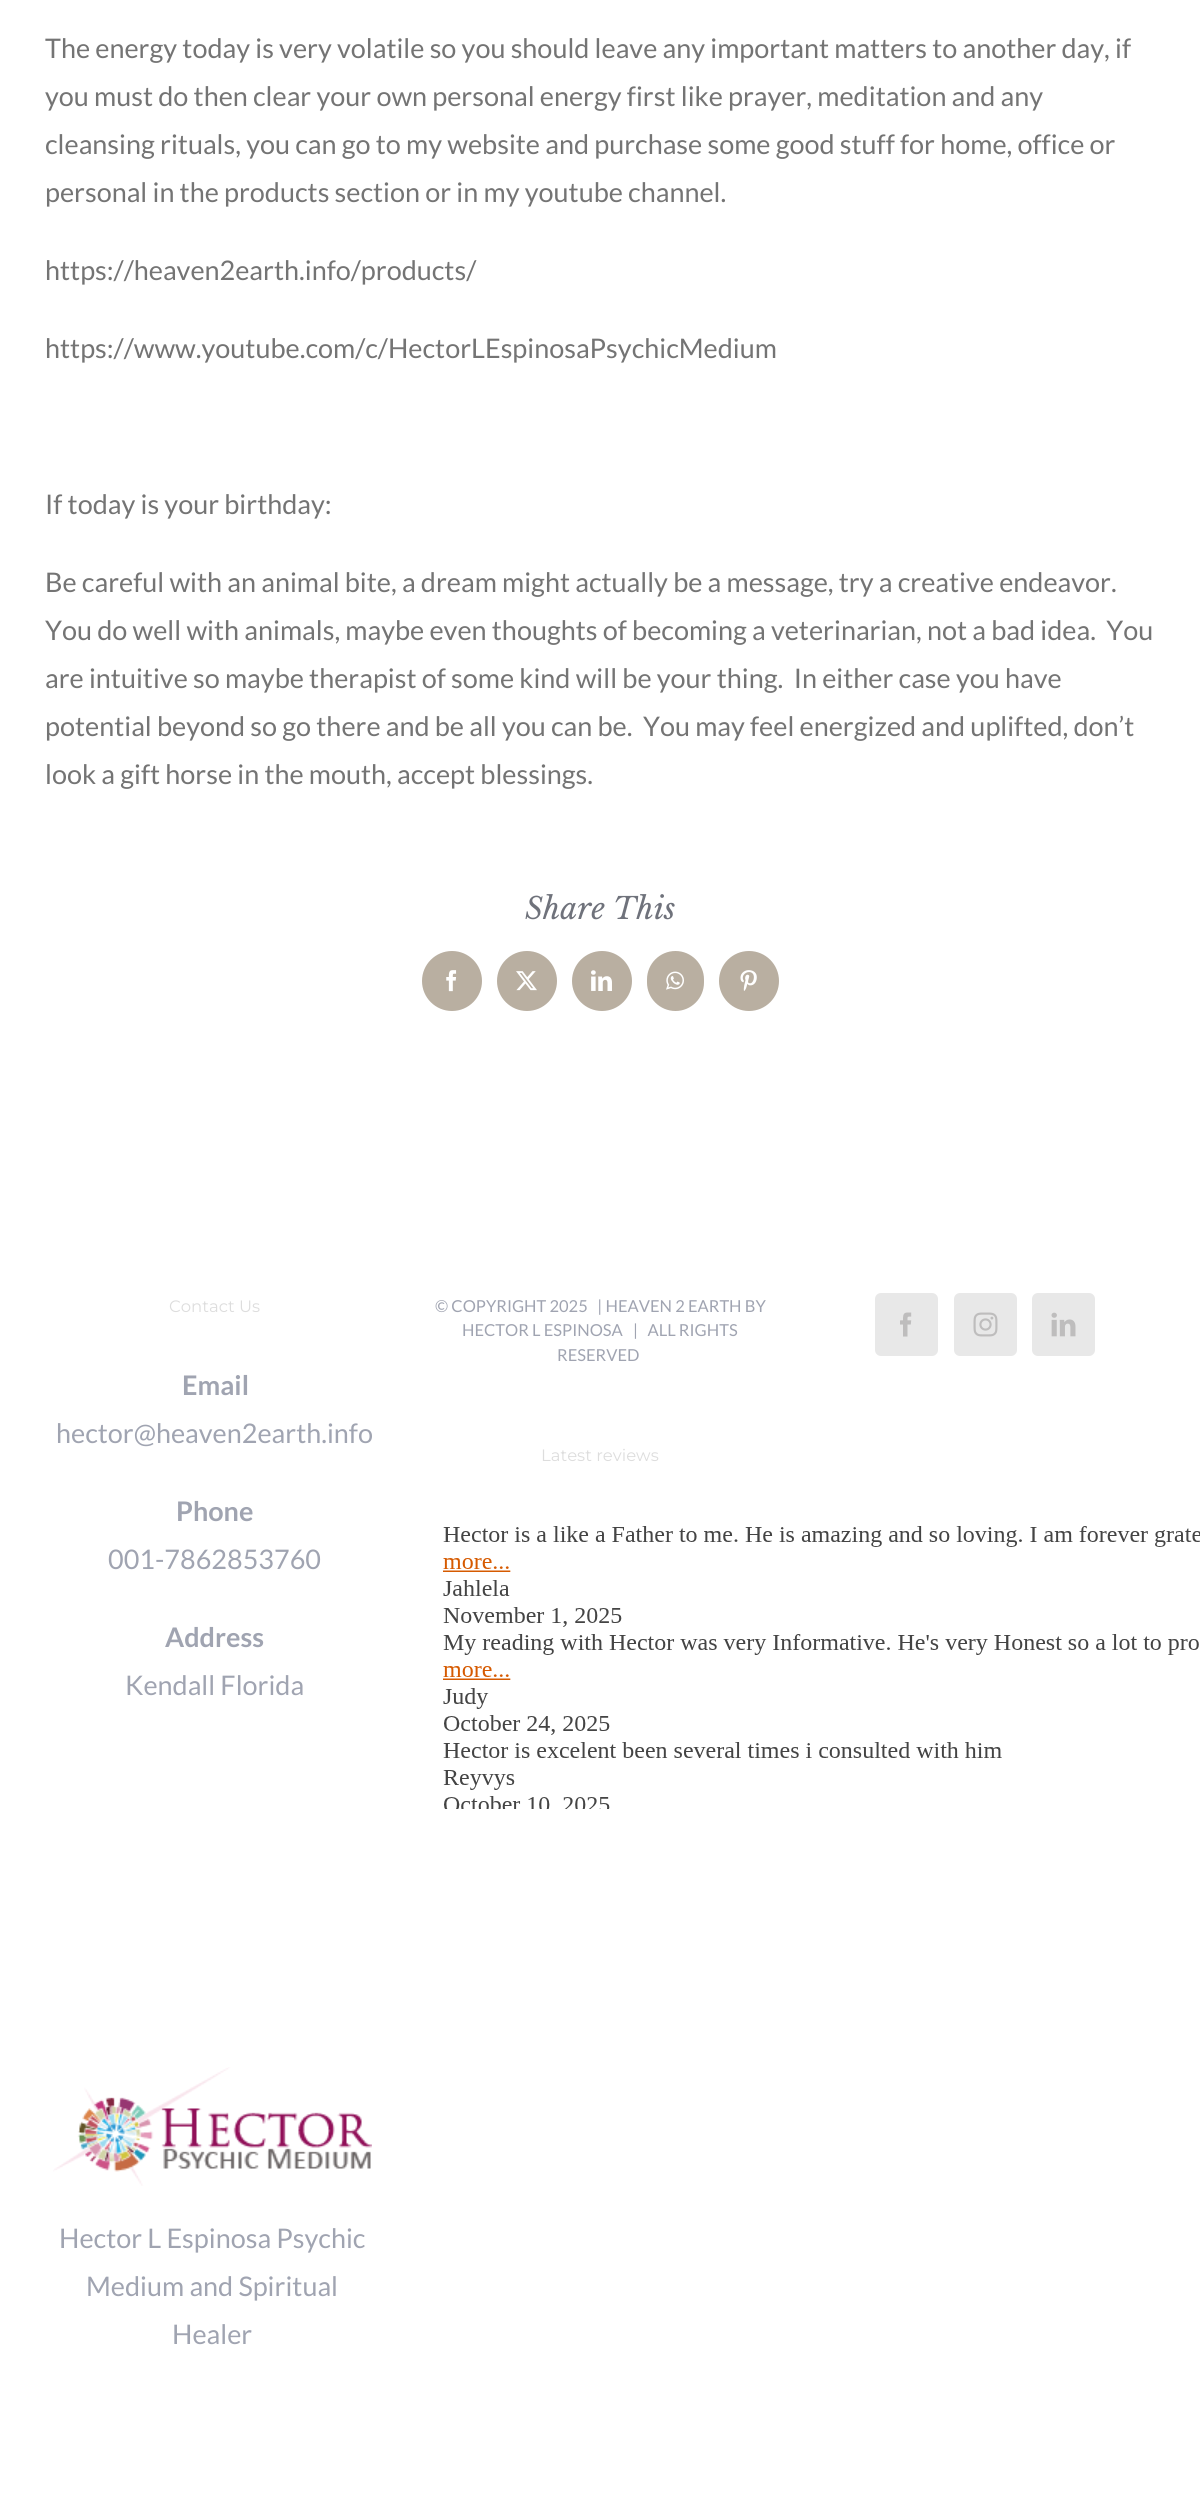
import math
import cairo

surface = cairo.ImageSurface(cairo.FORMAT_RGB24, 1200, 2516)
c = cairo.Context(surface)
options = cairo.FontOptions()
options.set_hint_metrics(cairo.HINT_METRICS_OFF)
options.set_hint_style(cairo.HINT_STYLE_NONE)
c.set_font_options(options)
c.set_miter_limit(4)
def C(code):
 c.set_source_rgb(*(v / 255 for v in bytes.fromhex(code[-6:])))
def F(family, size, italic, bold):
 c.select_font_face(family, cairo.FONT_SLANT_ITALIC if italic else cairo.FONT_SLANT_NORMAL, cairo.FONT_WEIGHT_BOLD if bold else cairo.FONT_WEIGHT_NORMAL)
 c.set_font_size(size)
def T(x, y, s):
 c.move_to(x, y)
 c.show_text(s)
def Q(x, y, w, h, r):
 c.new_sub_path()
 for i, (u, v) in enumerate([(x + w - r, y + h - r), (x + r, y + h - r), (x + r, y + r), (x + w - r, y + r)]):
  c.arc(u, v, r, i * math.pi / 2, (i + 1) * math.pi / 2)
 c.close_path()
def I(path, x, y, w, h):
 c.save()
 c.set_source_surface(cairo.ImageSurface.create_from_png(path), x, y)
 c.rectangle(x, y, w, h)
 c.fill()
 c.restore()
C('ffffff')
c.paint()
F('Lato',27,0,0)
C('747474')
T(45,58,'The energy today is very volatile so you should leave any important matters to another day, if')
T(45,106,'you must do then clear your own personal energy first like prayer, meditation and any')
T(45,154,'cleansing rituals, you can go to my website and purchase some good stuff for home, office or')
T(45,202,'personal in the products section or in my youtube channel.')
T(45,280,'https://heaven2earth.info/products/')
T(45,358,'https://www.youtube.com/c/HectorLEspinosaPsychicMedium')
T(45,514,'If today is your birthday:')
T(45,592,'Be careful with an animal bite, a dream might actually be a message, try a creative endeavor.')
T(45,640,'You do well with animals, maybe even thoughts of becoming a veterinarian, not a bad idea.  You')
T(45,688,'are intuitive so maybe therapist of some kind will be your thing.  In either case you have')
T(45,736,'potential beyond so go there and be all you can be.  You may feel energized and uplifted, don’t')
T(45,784,'look a gift horse in the mouth, accept blessings.')
F('Libre Baskerville',30,1,0)
C('6f727b')
T(525,919,'Share This')
C('b9afa1')
c.new_path()
c.arc(452,981,29,0,2 * math.pi)
c.fill_preserve()
c.stroke()
I('1.png',446,970,11,22)
c.arc(527,981,29,0,2 * math.pi)
c.fill_preserve()
c.stroke()
I('2.png',516,971,21,20)
c.arc(602,981,29,0,2 * math.pi)
c.fill_preserve()
c.stroke()
I('3.png',591,970,21,21)
Q(648,952,55,58,27.5)
c.fill_preserve()
c.stroke()
I('4.png',666,971,18,19)
c.arc(749,981,29,0,2 * math.pi)
c.fill_preserve()
c.stroke()
I('5.png',740,970,17,21)
F('Montserrat Thin',16.5,0,0)
C('dddddd')
T(169,1312,'Contact Us')
F('Lato',27,0,1)
C('a0a4b1')
T(182,1395,'Email')
F('Lato',27,0,0)
T(56,1443,'hector@heaven2earth.info')
F('Lato',27,0,1)
T(176,1521,'Phone')
F('Lato',27,0,0)
T(108,1569,'001-7862853760')
F('Lato',27,0,1)
T(165,1647,'Address')
F('Lato',27,0,0)
T(125,1695,'Kendall Florida')
I('6.png',53,2067,319,119)
T(59,2248,'Hector L Espinosa Psychic')
T(86,2296,'Medium and Spiritual')
T(172,2344,'Healer')
F('Lato',16.5,0,0)
T(435,1312,'© COPYRIGHT 2025   | HEAVEN 2 EARTH BY')
T(462,1336,'HECTOR L ESPINOSA')
T(633,1336,'|   ALL RIGHTS')
T(557,1361,'RESERVED')
F('Montserrat Thin',16.5,0,0)
C('dddddd')
T(541,1461,'Latest reviews')
I('7.png',443,1526,757,283)
C('e8e8e8')
Q(876,1294,61,61,5)
c.fill_preserve()
c.stroke()
I('8.png',900,1312,12,25)
Q(955,1294,61,61,5)
c.fill_preserve()
c.stroke()
I('9.png',973,1312,25,25)
Q(1033,1294,61,61,5)
c.fill_preserve()
c.stroke()
I('10.png',1051,1312,25,25)
surface.write_to_png('o.png')
